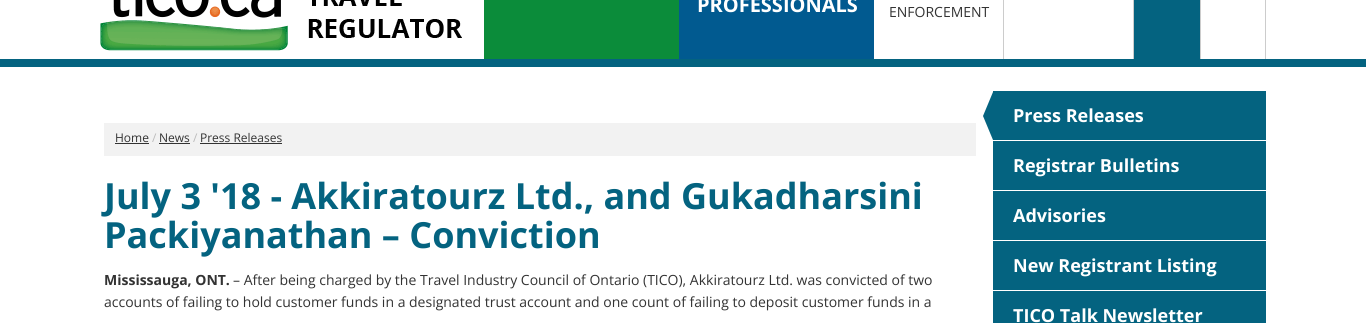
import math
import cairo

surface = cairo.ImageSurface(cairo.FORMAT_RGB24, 1366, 323)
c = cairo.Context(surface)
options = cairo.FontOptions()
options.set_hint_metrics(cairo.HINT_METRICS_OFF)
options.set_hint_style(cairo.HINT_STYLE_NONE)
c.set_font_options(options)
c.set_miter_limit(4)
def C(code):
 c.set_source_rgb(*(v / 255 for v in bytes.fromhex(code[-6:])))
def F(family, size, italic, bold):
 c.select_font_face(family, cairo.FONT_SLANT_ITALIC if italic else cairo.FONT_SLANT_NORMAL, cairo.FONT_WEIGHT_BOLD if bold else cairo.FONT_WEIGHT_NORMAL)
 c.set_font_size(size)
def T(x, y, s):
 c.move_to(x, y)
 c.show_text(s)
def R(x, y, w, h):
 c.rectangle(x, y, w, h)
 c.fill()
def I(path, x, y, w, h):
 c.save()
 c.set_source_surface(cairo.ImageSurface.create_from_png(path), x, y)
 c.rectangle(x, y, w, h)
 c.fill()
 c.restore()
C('ffffff')
c.paint()
I('1.png',100,0,362,51)
C('0b8c3a')
R(484,0,195,59)
C('015a90')
R(679,0,195,59)
F('Open Sans',20,0,1)
C('ffffff')
T(697,12,'PROFESSIONALS')
C('cccccc')
R(1003,0,1,59)
F('Open Sans',14,0,0)
C('333333')
T(889,17,'ENFORCEMENT')
C('cccccc')
R(1133,0,1,59)
R(1200,0,1,59)
C('046380')
R(1134,0,66,59)
C('cccccc')
R(1265,0,1,59)
C('046380')
R(0,59,1366,8)
c.rectangle(104.5,123.5,871,32)
C('f2f2f2')
c.set_line_width(1)
c.stroke()
R(105,124,870,31)
F('Open Sans',12,0,0)
C('333333')
T(115,142,'Home')
R(115,143,34,1)
C('bbbbbb')
T(152,142,'/')
C('333333')
T(159,142,'News')
R(159,143,31,1)
C('bbbbbb')
T(193,142,'/')
C('333333')
T(200,142,'Press Releases')
R(200,143,82,1)
F('Open Sans',36,0,1)
C('046380')
T(104,209,'July 3 \'18 - Akkiratourz Ltd., and Gukadharsini')
T(104,248,'Packiyanathan – Conviction')
F('Open Sans',14,0,1)
C('333333')
T(104,285,'Mississauga, ONT.')
F('Open Sans',14,0,0)
T(233,285,'– After being charged by the Travel Industry Council of Ontario (TICO), Akkiratourz Ltd. was convicted of two')
T(104,307,'accounts of failing to hold customer funds in a designated trust account and one count of failing to deposit customer funds in a')
C('046380')
R(993,91,273,49)
c.new_path()
c.move_to(993,92)
c.line_to(993,140)
c.line_to(983,116)
c.close_path()
c.fill()
F('Open Sans',18,0,1)
C('ffffff')
T(1013,122,'Press Releases')
C('046380')
R(993,141,273,49)
C('ffffff')
T(1013,172,'Registrar Bulletins')
C('046380')
R(993,191,273,49)
C('ffffff')
T(1013,222,'Advisories')
C('046380')
R(993,241,273,49)
C('ffffff')
T(1013,272,'New Registrant Listing')
C('046380')
R(993,291,273,32)
C('ffffff')
T(1013,322,'TICO Talk Newsletter')
surface.write_to_png('o.png')
